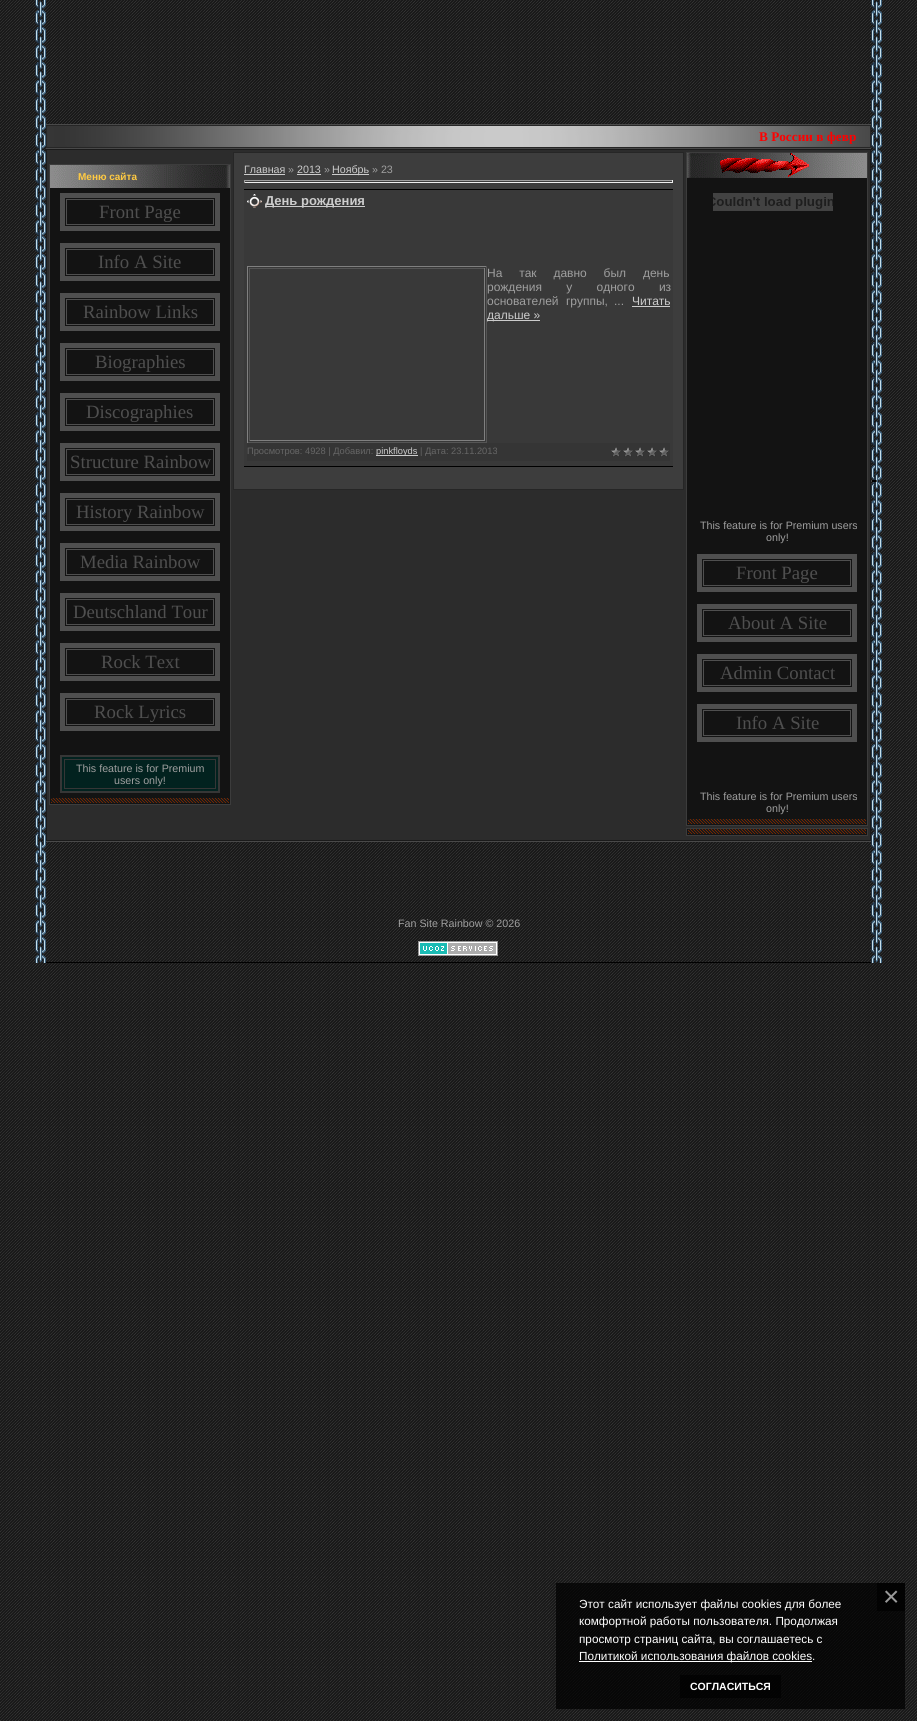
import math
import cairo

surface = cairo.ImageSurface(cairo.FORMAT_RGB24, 917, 1721)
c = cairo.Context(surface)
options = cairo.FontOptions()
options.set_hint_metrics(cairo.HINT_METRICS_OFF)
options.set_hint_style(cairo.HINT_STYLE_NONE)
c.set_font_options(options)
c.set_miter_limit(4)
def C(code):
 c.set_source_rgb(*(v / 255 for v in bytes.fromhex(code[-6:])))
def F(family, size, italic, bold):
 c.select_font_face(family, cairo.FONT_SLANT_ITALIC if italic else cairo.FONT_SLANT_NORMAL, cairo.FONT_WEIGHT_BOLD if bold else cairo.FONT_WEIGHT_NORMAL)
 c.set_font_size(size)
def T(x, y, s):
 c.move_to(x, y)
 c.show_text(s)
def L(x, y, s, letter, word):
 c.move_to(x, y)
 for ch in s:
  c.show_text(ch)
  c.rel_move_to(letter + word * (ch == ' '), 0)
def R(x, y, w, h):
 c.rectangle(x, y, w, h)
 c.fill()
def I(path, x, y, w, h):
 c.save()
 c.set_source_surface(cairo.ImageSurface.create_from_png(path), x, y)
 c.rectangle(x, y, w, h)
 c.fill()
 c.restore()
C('ffffff')
c.paint()
I('1.png',0,0,917,1721)
I('2.png',35,0,11,963)
C('000000')
R(46,962,825,1)
C('494949')
R(46,124,825,1)
I('3.png',47,126,823,21)
c.rectangle(46.5,125.5,824,22)
C('262626')
c.set_line_width(1)
c.stroke()
F('Liberation Serif',13.25,0,1)
C('ff0000')
T(759,141,'В России в февр')
C('494949')
R(46,148,825,1)
R(46,841,825,1)
C('2c2c2c')
c.rectangle(46.5,149.5,824,691)
c.fill_preserve()
C('1a1a1a')
c.stroke()
c.rectangle(49.5,164.5,181,640)
C('3c3c3c')
c.stroke()
I('4.png',50,165,180,23)
F('Liberation Sans',10,0,1)
C('ffca42')
T(78,180,'Меню сайта')
C('131313')
R(50,188,180,610)
c.rectangle(62.5,195.5,155,33)
C('4f4f4f')
c.set_line_width(5)
c.stroke()
c.rectangle(66.5,199.5,147,25)
c.set_line_width(1)
c.stroke()
F('Liberation Serif',18.75,0,0)
T(99,218,'Front Page')
c.rectangle(62.5,245.5,155,33)
c.set_line_width(5)
c.stroke()
c.rectangle(66.5,249.5,147,25)
c.set_line_width(1)
c.stroke()
T(98,268,'Info A Site')
c.rectangle(62.5,295.5,155,33)
c.set_line_width(5)
c.stroke()
c.rectangle(66.5,299.5,147,25)
c.set_line_width(1)
c.stroke()
T(83,318,'Rainbow Links')
c.rectangle(62.5,345.5,155,33)
c.set_line_width(5)
c.stroke()
c.rectangle(66.5,349.5,147,25)
c.set_line_width(1)
c.stroke()
T(95,368,'Biographies')
c.rectangle(62.5,395.5,155,33)
c.set_line_width(5)
c.stroke()
c.rectangle(66.5,399.5,147,25)
c.set_line_width(1)
c.stroke()
T(86,418,'Discographies')
c.rectangle(62.5,445.5,155,33)
c.set_line_width(5)
c.stroke()
c.rectangle(66.5,449.5,147,25)
c.set_line_width(1)
c.stroke()
T(70,468,'Structure Rainbow')
c.rectangle(62.5,495.5,155,33)
c.set_line_width(5)
c.stroke()
c.rectangle(66.5,499.5,147,25)
c.set_line_width(1)
c.stroke()
T(76,518,'History Rainbow')
c.rectangle(62.5,545.5,155,33)
c.set_line_width(5)
c.stroke()
c.rectangle(66.5,549.5,147,25)
c.set_line_width(1)
c.stroke()
T(80,568,'Media Rainbow')
c.rectangle(62.5,595.5,155,33)
c.set_line_width(5)
c.stroke()
c.rectangle(66.5,599.5,147,25)
c.set_line_width(1)
c.stroke()
T(73,618,'Deutschland Tour')
c.rectangle(62.5,645.5,155,33)
c.set_line_width(5)
c.stroke()
c.rectangle(66.5,649.5,147,25)
c.set_line_width(1)
c.stroke()
T(101,668,'Rock Text')
c.rectangle(62.5,695.5,155,33)
c.set_line_width(5)
c.stroke()
c.rectangle(66.5,699.5,147,25)
c.set_line_width(1)
c.stroke()
T(94,718,'Rock Lyrics')
C('02221f')
c.rectangle(61,756,158,36)
c.fill_preserve()
C('363636')
c.set_line_width(2)
c.stroke()
c.rectangle(64.5,759.5,151,29)
c.set_line_width(1)
c.stroke()
F('Liberation Sans',10.7,0,0)
C('9f9f9f')
T(76,772,'This feature is for Premium')
T(114,784,'users only!')
I('5.png',50,798,180,6)
C('3d3d3d')
c.rectangle(233.5,152.5,450,337)
c.fill_preserve()
C('262626')
c.stroke()
C('cccccc')
T(244,173,'Главная')
R(244,174,41,1)
C('9f9f9f')
T(288,173,'»')
C('cccccc')
T(297,173,'2013')
R(297,174,24,1)
C('9f9f9f')
T(324,173,'»')
C('cccccc')
R(332,174,37,1)
T(332,173,'Ноябрь')
C('9f9f9f')
T(372,173,'» 23')
R(244,180,429,1)
C('eeeeee')
R(672,180,1,3)
R(244,182,429,1)
C('9f9f9f')
R(244,180,1,3)
C('393939')
R(244,190,429,276)
C('000000')
R(244,189,429,1)
R(244,466,429,1)
I('6.png',247,194,15,14)
C('cccccc')
R(265,206,100,1)
F('Liberation Sans',13,0,1)
T(265,205,'День рождения')
C('808080')
R(247,266,240,1)
C('555555')
R(486,266,1,177)
R(247,442,240,1)
C('808080')
R(247,266,1,177)
C('555555')
R(249,268,236,1)
C('808080')
R(484,268,1,173)
R(249,440,236,1)
C('555555')
R(249,268,1,173)
F('Liberation Sans',12,0,0)
C('9f9f9f')
L(487,277,'На так давно был день',0,13.5)
L(487,291,'рождения у одного из',0,21)
L(487,305,'основателей группы,',0,4)
T(614,305,'...')
C('cccccc')
T(632,305,'Читать')
R(632,306,38,1)
R(487,320,53,1)
T(487,319,'дальше »')
C('353535')
R(247,443,423,18)
F('Liberation Sans',9.3,0,0)
C('666666')
T(247,454,'Просмотров: 4928 | Добавил:')
C('cccccc')
R(376,455,42,1)
T(376,454,'pinkfloyds')
C('666666')
T(420,454,'| Дата: 23.11.2013')
I('7.png',611,447,58,10)
c.rectangle(686.5,152.5,181,673)
C('3c3c3c')
c.stroke()
I('8.png',687,153,180,25)
I('9.png',720,153,89,24)
C('131313')
R(687,178,180,641)
I('10.png',713,193,120,18)
F('Liberation Sans',10.7,0,0)
C('9f9f9f')
T(700,529,'This feature is for Premium users')
T(766,541,'only!')
c.rectangle(699.5,556.5,155,33)
C('4f4f4f')
c.set_line_width(5)
c.stroke()
c.rectangle(703.5,560.5,147,25)
c.set_line_width(1)
c.stroke()
F('Liberation Serif',18.75,0,0)
T(736,579,'Front Page')
c.rectangle(699.5,606.5,155,33)
c.set_line_width(5)
c.stroke()
c.rectangle(703.5,610.5,147,25)
c.set_line_width(1)
c.stroke()
T(728,629,'About A Site')
c.rectangle(699.5,656.5,155,33)
c.set_line_width(5)
c.stroke()
c.rectangle(703.5,660.5,147,25)
c.set_line_width(1)
c.stroke()
T(720,679,'Admin Contact')
c.rectangle(699.5,706.5,155,33)
c.set_line_width(5)
c.stroke()
c.rectangle(703.5,710.5,147,25)
c.set_line_width(1)
c.stroke()
T(736,729,'Info A Site')
F('Liberation Sans',10.7,0,0)
C('9f9f9f')
T(700,800,'This feature is for Premium users')
T(766,812,'only!')
I('5.png',687,819,180,6)
c.rectangle(686.5,828.5,181,7)
C('3c3c3c')
c.stroke()
I('5.png',687,829,180,6)
C('9f9f9f')
T(398,927,'Fan Site Rainbow © 2026')
I('11.png',418,941,80,15)
I('12.png',871,0,11,963)
I('13.png',871,480,6,2)
c.set_source_rgba(0,0,0,0.73)
R(556,1583,349,126)
R(877,1583,28,28)
F('Liberation Sans',28,0,0)
C('999999')
T(883,1606,'×')
c.set_source_rgba(0,0,0,0.73)
R(680,1675,101,23)
F('Liberation Sans',10.5,0,1)
C('ffffff')
T(690,1690,'СОГЛАСИТЬСЯ')
F('Liberation Sans',11.75,0,0)
T(579,1608,'Этот сайт использует файлы cookies для более')
T(579,1625,'комфортной работы пользователя. Продолжая')
T(579,1643,'просмотр страниц сайта, вы соглашаетесь с')
R(579,1661,233,1)
T(579,1660,'Политикой использования файлов cookies.')
surface.write_to_png('o.png')
